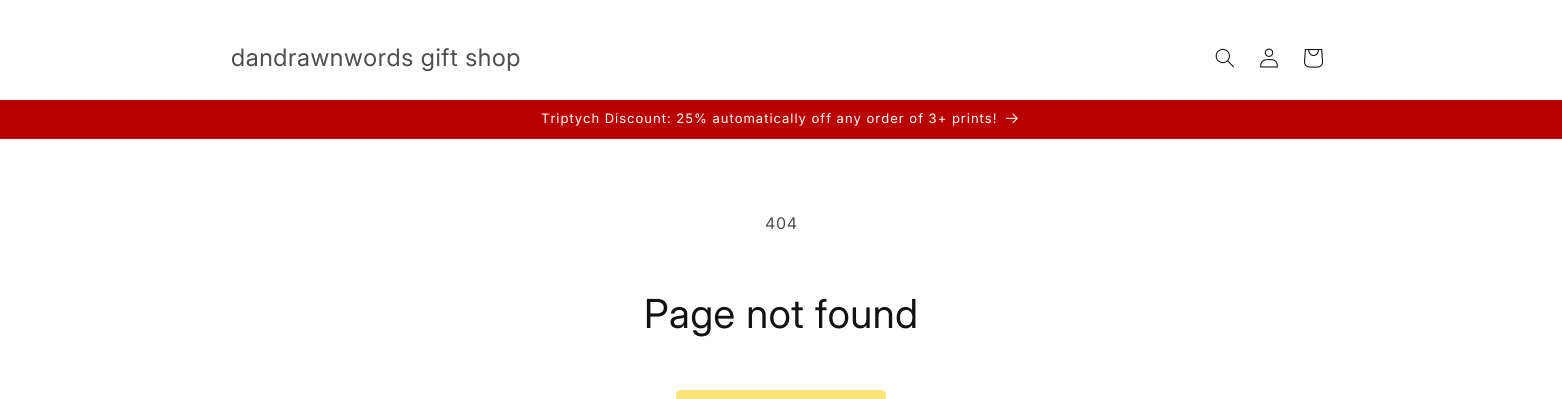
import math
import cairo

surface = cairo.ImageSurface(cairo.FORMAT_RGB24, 1562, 399)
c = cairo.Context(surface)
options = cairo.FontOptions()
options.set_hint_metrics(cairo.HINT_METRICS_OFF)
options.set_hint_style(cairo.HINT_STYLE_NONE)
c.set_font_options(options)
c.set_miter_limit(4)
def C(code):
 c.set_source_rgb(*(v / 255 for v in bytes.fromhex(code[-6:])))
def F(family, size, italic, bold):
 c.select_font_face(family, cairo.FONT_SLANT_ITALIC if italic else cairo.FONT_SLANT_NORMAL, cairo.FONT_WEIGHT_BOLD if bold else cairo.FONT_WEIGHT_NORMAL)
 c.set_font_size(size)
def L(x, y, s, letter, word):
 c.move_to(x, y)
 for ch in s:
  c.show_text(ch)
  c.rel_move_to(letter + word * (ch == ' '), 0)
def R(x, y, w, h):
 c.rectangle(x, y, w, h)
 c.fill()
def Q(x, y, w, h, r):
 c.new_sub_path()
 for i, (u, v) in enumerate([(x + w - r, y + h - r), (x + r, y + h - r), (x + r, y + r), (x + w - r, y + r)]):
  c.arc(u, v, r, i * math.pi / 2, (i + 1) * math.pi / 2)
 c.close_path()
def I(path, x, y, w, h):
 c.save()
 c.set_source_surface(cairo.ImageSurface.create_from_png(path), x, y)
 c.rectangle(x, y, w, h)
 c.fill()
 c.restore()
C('ffffff')
c.paint()
F('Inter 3',24,0,0)
C('4d4d4d')
L(231,66,'dandrawnwords gift shop',.6,0)
I('1.png',1215,48,19,20)
I('2.png',1260,48,18,20)
I('3.png',1304,49,20,19)
C('b90000')
R(0,100,1562,38)
C('bf1414')
R(0,138,1562,1)
F('Inter',13,0,0)
C('ffffff')
L(541,123,'Triptych Discount: 25% automatically off any order of 3+ prints!',1,0)
I('4.png',1006,113,12,11)
F('Inter',16,0,0)
C('4d4d4d')
L(765,229,'404',.6,0)
F('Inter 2',40,0,0)
C('121212')
L(644,328,'Page not found',.6,0)
C('fce477')
Q(676.5,390.5,209,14,4.5)
c.fill_preserve()
c.set_line_width(1)
c.stroke()
surface.write_to_png('o.png')
